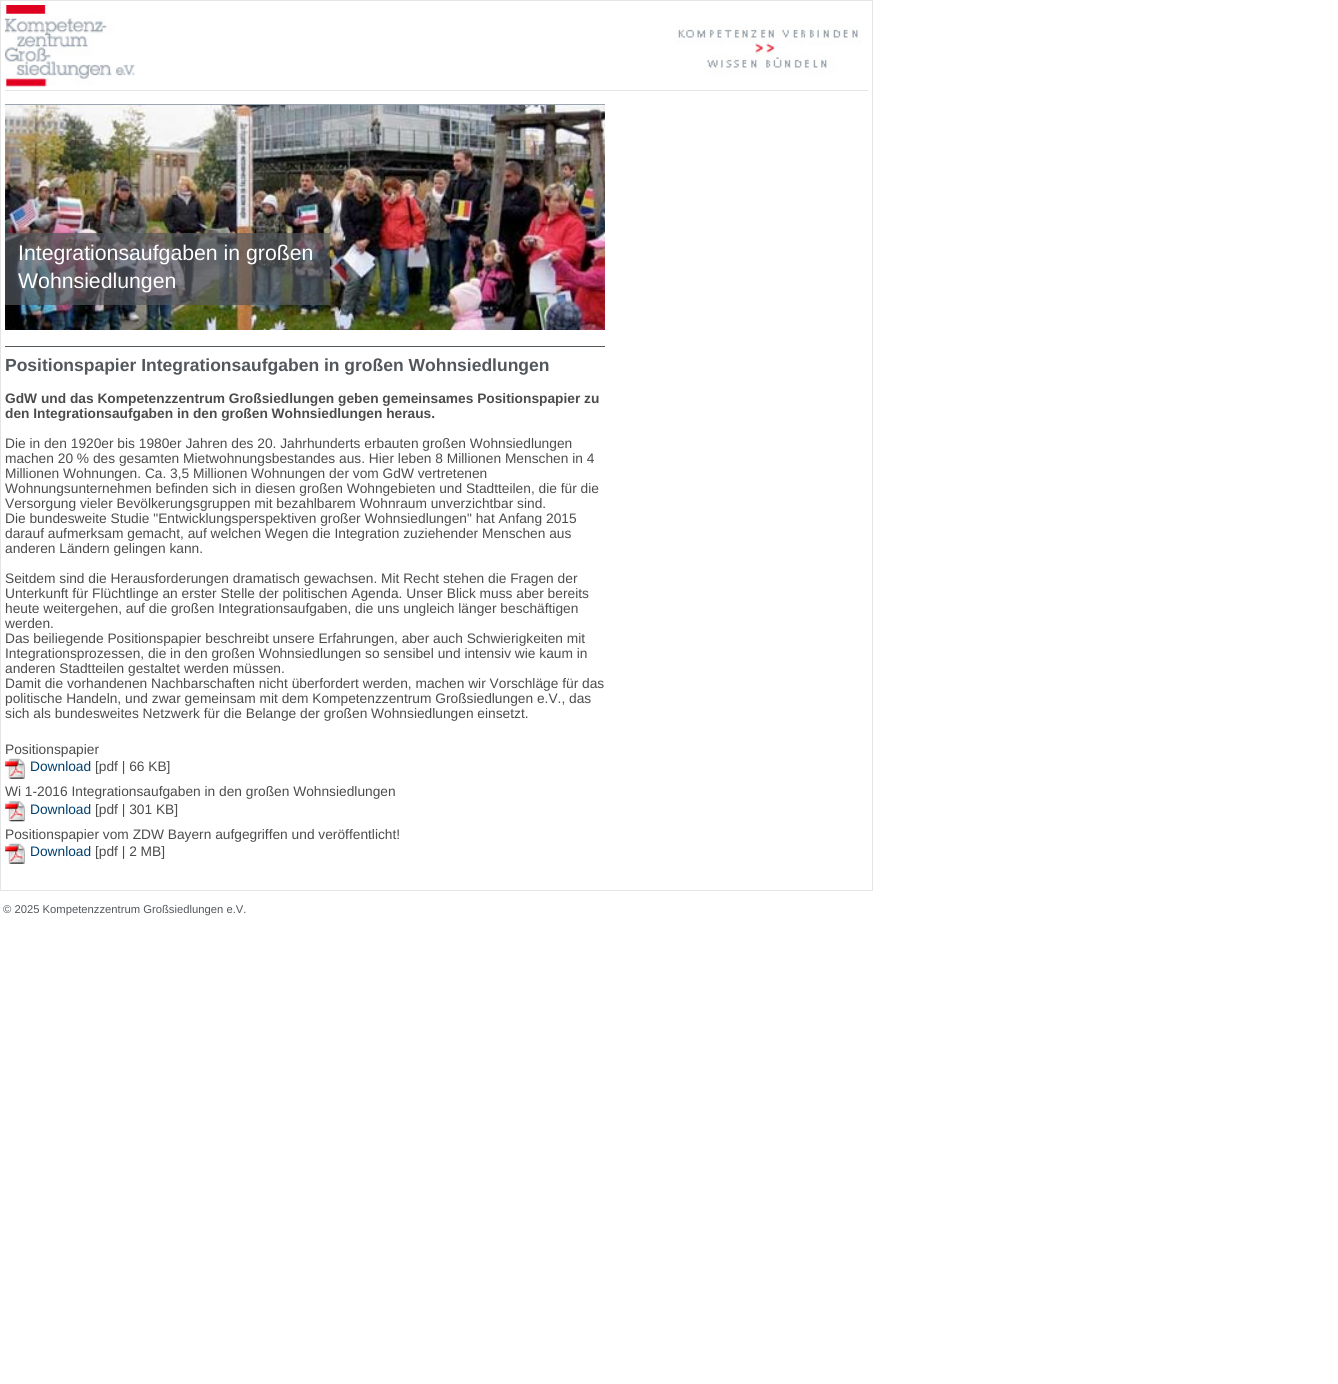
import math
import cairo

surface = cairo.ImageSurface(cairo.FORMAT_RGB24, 1338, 1384)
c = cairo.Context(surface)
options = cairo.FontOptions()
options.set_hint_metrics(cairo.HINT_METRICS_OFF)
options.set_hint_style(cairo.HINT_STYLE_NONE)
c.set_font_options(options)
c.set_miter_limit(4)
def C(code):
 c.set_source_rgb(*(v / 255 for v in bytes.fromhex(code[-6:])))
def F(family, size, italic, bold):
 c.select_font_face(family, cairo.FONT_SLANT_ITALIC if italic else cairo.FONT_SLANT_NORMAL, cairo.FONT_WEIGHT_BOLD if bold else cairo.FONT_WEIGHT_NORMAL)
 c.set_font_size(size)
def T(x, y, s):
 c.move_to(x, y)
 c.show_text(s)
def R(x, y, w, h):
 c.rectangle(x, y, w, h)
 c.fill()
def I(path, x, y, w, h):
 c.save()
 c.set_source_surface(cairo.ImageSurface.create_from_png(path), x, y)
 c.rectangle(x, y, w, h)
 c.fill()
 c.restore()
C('ffffff')
c.paint()
c.rectangle(.5,.5,872,890)
C('e5e5e5')
c.set_line_width(1)
c.stroke()
I('1.png',5,5,856,82)
R(5,90,863,1)
C('9ba5af')
R(5,104,600,1)
I('2.png',5,105,600,225)
c.set_source_rgba(0.325,0.341,0.365,0.7)
R(5,233,325,72)
F('Liberation Sans',21.25,0,0)
C('ffffff')
T(18,260,'Integrationsaufgaben in großen')
T(18,288,'Wohnsiedlungen')
C('52575c')
R(5,346,600,1)
F('Liberation Sans',17.5,0,1)
T(5,371,'Positionspapier Integrationsaufgaben in großen Wohnsiedlungen')
F('Liberation Sans',13.75,0,1)
C('4c4c4c')
T(5,403,'GdW und das Kompetenzzentrum Großsiedlungen geben gemeinsames Positionspapier zu')
T(5,418,'den Integrationsaufgaben in den großen Wohnsiedlungen heraus.')
F('Liberation Sans',13.75,0,0)
T(5,448,'Die in den 1920er bis 1980er Jahren des 20. Jahrhunderts erbauten großen Wohnsiedlungen')
T(5,463,'machen 20 % des gesamten Mietwohnungsbestandes aus. Hier leben 8 Millionen Menschen in 4')
T(5,478,'Millionen Wohnungen. Ca. 3,5 Millionen Wohnungen der vom GdW vertretenen')
T(5,493,'Wohnungsunternehmen befinden sich in diesen großen Wohngebieten und Stadtteilen, die für die')
T(5,508,'Versorgung vieler Bevölkerungsgruppen mit bezahlbarem Wohnraum unverzichtbar sind.')
T(5,523,'Die bundesweite Studie "Entwicklungsperspektiven großer Wohnsiedlungen" hat Anfang 2015')
T(5,538,'darauf aufmerksam gemacht, auf welchen Wegen die Integration zuziehender Menschen aus')
T(5,553,'anderen Ländern gelingen kann.')
T(5,583,'Seitdem sind die Herausforderungen dramatisch gewachsen. Mit Recht stehen die Fragen der')
T(5,598,'Unterkunft für Flüchtlinge an erster Stelle der politischen Agenda. Unser Blick muss aber bereits')
T(5,613,'heute weitergehen, auf die großen Integrationsaufgaben, die uns ungleich länger beschäftigen')
T(5,628,'werden.')
T(5,643,'Das beiliegende Positionspapier beschreibt unsere Erfahrungen, aber auch Schwierigkeiten mit')
T(5,658,'Integrationsprozessen, die in den großen Wohnsiedlungen so sensibel und intensiv wie kaum in')
T(5,673,'anderen Stadtteilen gestaltet werden müssen.')
T(5,688,'Damit die vorhandenen Nachbarschaften nicht überfordert werden, machen wir Vorschläge für das')
T(5,703,'politische Handeln, und zwar gemeinsam mit dem Kompetenzzentrum Großsiedlungen e.V., das')
T(5,718,'sich als bundesweites Netzwerk für die Belange der großen Wohnsiedlungen einsetzt.')
T(5,754,'Positionspapier')
I('3.png',5,758,20,21)
C('003f6e')
T(30,771,'Download')
C('4c4c4c')
T(95,771,'[pdf | 66 KB]')
T(5,796,'Wi 1-2016 Integrationsaufgaben in den großen Wohnsiedlungen')
I('4.png',5,801,20,21)
C('003f6e')
T(30,814,'Download')
C('4c4c4c')
T(95,814,'[pdf | 301 KB]')
T(5,839,'Positionspapier vom ZDW Bayern aufgegriffen und veröffentlicht!')
I('3.png',5,843,20,21)
C('003f6e')
T(30,856,'Download')
C('4c4c4c')
T(95,856,'[pdf | 2 MB]')
F('Liberation Sans',11.25,0,0)
C('52575c')
T(3,913,'© 2025 Kompetenzzentrum Großsiedlungen e.V.')
surface.write_to_png('o.png')
